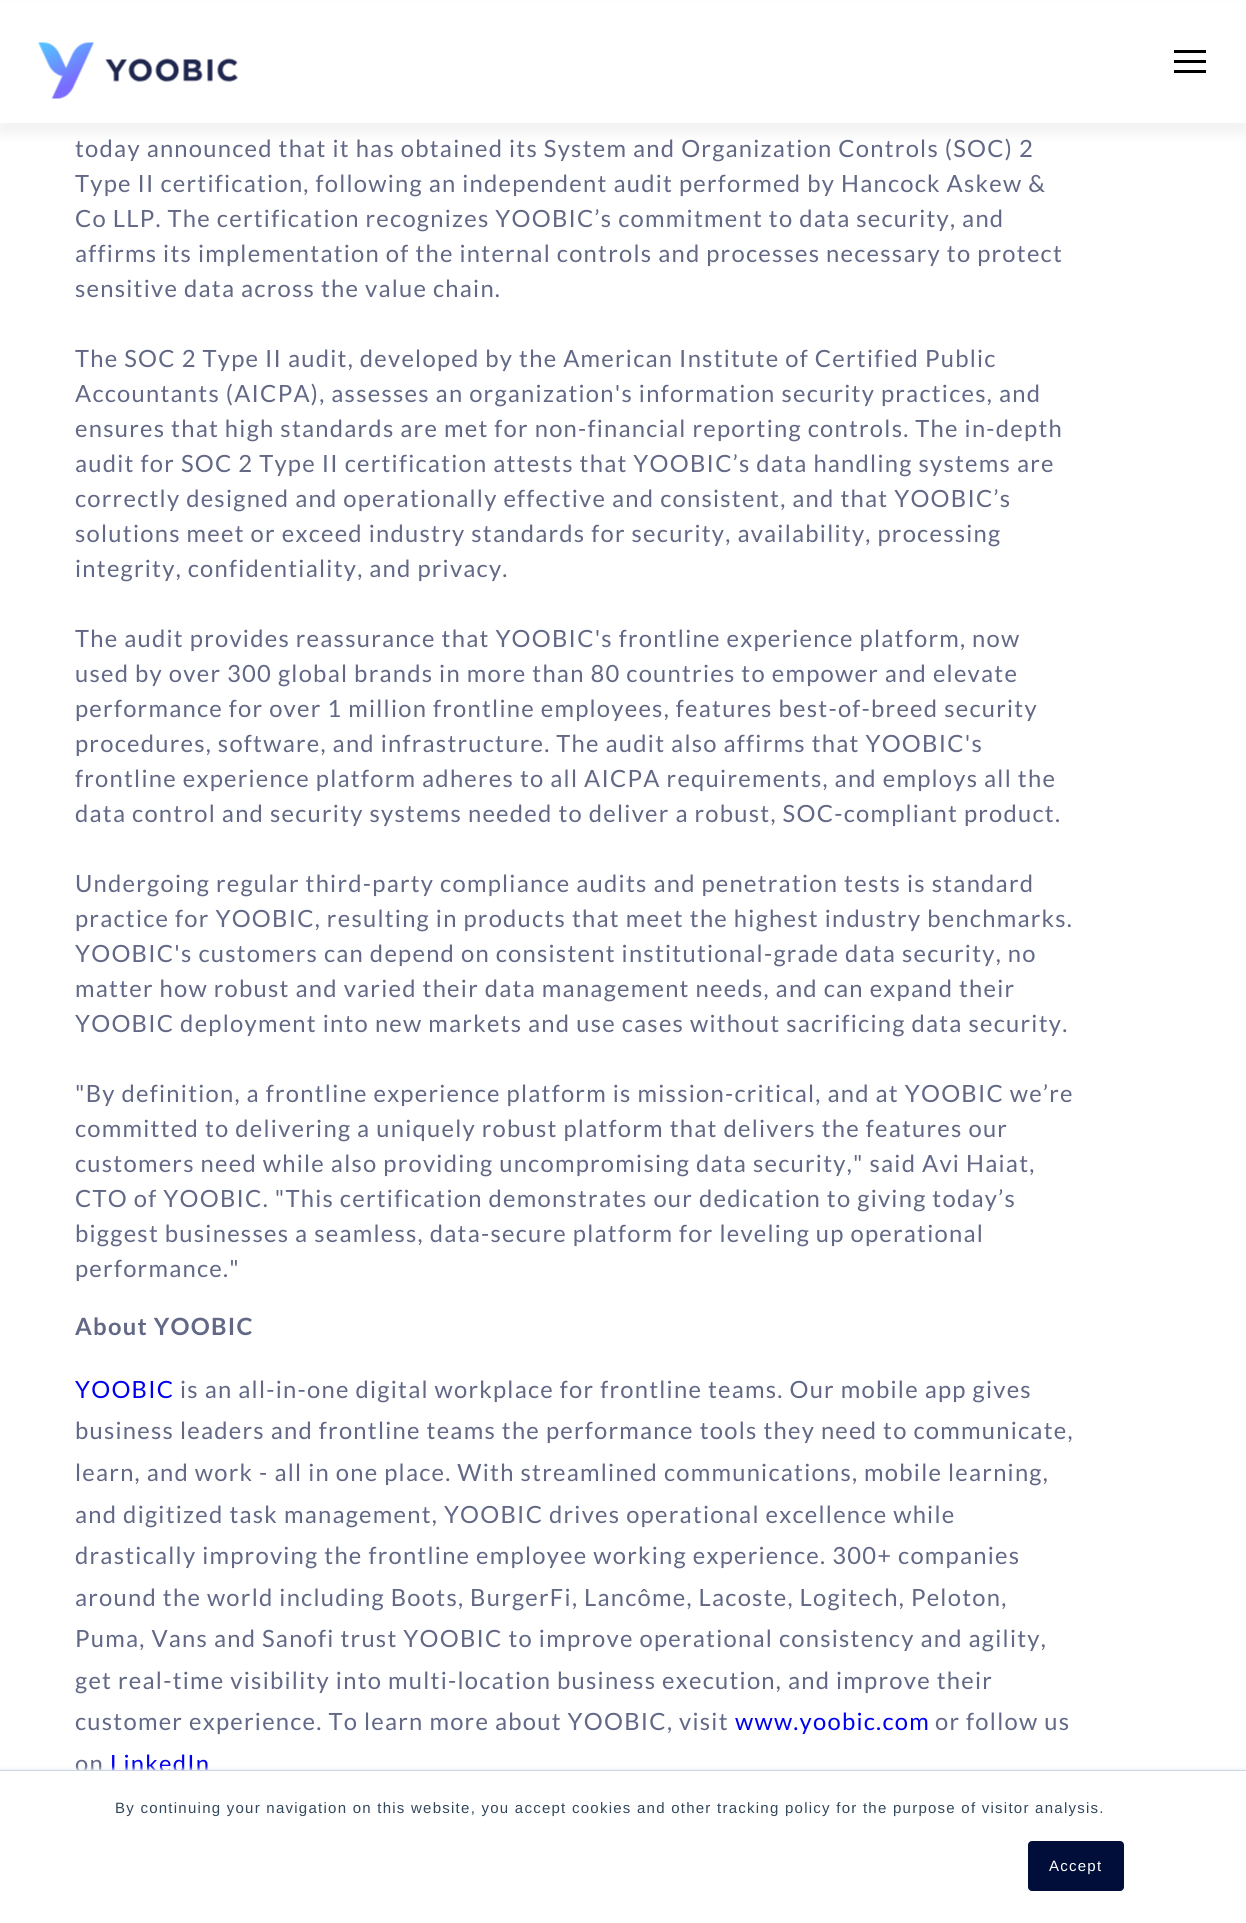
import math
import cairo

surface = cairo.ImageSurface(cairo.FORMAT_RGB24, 1246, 1923)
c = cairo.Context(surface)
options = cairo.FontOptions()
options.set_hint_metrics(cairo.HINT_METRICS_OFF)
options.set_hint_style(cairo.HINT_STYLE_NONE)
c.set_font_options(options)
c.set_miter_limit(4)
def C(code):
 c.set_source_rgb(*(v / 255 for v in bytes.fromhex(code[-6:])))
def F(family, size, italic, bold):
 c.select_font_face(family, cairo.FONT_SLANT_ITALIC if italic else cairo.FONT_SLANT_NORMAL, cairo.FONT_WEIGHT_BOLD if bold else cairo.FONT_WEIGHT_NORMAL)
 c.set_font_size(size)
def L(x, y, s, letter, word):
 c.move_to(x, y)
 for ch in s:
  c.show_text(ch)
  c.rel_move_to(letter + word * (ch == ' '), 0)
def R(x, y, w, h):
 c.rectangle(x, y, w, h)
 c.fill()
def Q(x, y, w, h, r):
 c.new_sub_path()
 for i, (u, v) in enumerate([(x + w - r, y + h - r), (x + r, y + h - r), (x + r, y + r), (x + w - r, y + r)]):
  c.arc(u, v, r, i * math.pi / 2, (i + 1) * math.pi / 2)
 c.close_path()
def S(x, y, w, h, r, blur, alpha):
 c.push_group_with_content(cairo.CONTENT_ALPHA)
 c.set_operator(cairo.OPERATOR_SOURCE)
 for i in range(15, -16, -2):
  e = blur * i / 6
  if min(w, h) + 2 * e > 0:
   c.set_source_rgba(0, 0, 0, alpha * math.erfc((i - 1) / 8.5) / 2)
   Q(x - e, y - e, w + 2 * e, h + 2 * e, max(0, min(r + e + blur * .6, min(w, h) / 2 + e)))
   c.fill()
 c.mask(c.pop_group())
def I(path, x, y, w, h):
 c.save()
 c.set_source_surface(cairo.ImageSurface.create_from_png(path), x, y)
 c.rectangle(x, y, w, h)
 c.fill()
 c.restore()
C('ffffff')
c.paint()
C('000000')
S(-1,8,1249,125,0,7.5,.06)
C('ffffff')
R(0,1,1246,122)
I('1.png',38,42,200,57)
C('000000')
R(1174,50,32,3)
R(1174,60,32,3)
R(1174,70,32,3)
F('Lato',23.75,0,0)
C('626885')
L(75,157,'today announced that it has obtained its System and Organization Controls (SOC) 2',1.25,0)
L(75,192,'Type II certification, following an independent audit performed by Hancock Askew &',1.25,0)
L(75,227,'Co LLP. The certification recognizes YOOBIC’s commitment to data security, and',1.25,0)
L(75,262,'affirms its implementation of the internal controls and processes necessary to protect',1.25,0)
L(75,297,'sensitive data across the value chain.',1.25,0)
L(75,367,'The SOC 2 Type II audit, developed by the American Institute of Certified Public',1.25,0)
L(75,402,'Accountants (AICPA), assesses an organization\'s information security practices, and',1.25,0)
L(75,437,'ensures that high standards are met for non-financial reporting controls. The in-depth',1.25,0)
L(75,472,'audit for SOC 2 Type II certification attests that YOOBIC’s data handling systems are',1.25,0)
L(75,507,'correctly designed and operationally effective and consistent, and that YOOBIC’s',1.25,0)
L(75,542,'solutions meet or exceed industry standards for security, availability, processing',1.25,0)
L(75,577,'integrity, confidentiality, and privacy.',1.25,0)
L(75,647,'The audit provides reassurance that YOOBIC\'s frontline experience platform, now',1.25,0)
L(75,682,'used by over 300 global brands in more than 80 countries to empower and elevate',1.25,0)
L(75,717,'performance for over 1 million frontline employees, features best-of-breed security',1.25,0)
L(75,752,'procedures, software, and infrastructure. The audit also affirms that YOOBIC\'s',1.25,0)
L(75,787,'frontline experience platform adheres to all AICPA requirements, and employs all the',1.25,0)
L(75,822,'data control and security systems needed to deliver a robust, SOC-compliant product.',1.25,0)
L(75,892,'Undergoing regular third-party compliance audits and penetration tests is standard',1.25,0)
L(75,927,'practice for YOOBIC, resulting in products that meet the highest industry benchmarks.',1.25,0)
L(75,962,'YOOBIC\'s customers can depend on consistent institutional-grade data security, no',1.25,0)
L(75,997,'matter how robust and varied their data management needs, and can expand their',1.25,0)
L(75,1032,'YOOBIC deployment into new markets and use cases without sacrificing data security.',1.25,0)
L(75,1102,'"By definition, a frontline experience platform is mission-critical, and at YOOBIC we’re',1.25,0)
L(75,1137,'committed to delivering a uniquely robust platform that delivers the features our',1.25,0)
L(75,1172,'customers need while also providing uncompromising data security," said Avi Haiat,',1.25,0)
L(75,1207,'CTO of YOOBIC. "This certification demonstrates our dedication to giving today’s',1.25,0)
L(75,1242,'biggest businesses a seamless, data-secure platform for leveling up operational',1.25,0)
L(75,1277,'performance."',1.25,0)
F('Lato',23.75,0,1)
L(75,1335,'About YOOBIC',1.25,0)
F('Lato',23.75,0,0)
C('0000ee')
L(75,1398,'YOOBIC',1.25,0)
C('626885')
L(180,1398,'is an all-in-one digital workplace for frontline teams. Our mobile app gives',1.25,0)
L(75,1439,'business leaders and frontline teams the performance tools they need to communicate,',1.25,0)
L(75,1481,'learn, and work - all in one place. With streamlined communications, mobile learning,',1.25,0)
L(75,1523,'and digitized task management, YOOBIC drives operational excellence while',1.25,0)
L(75,1564,'drastically improving the frontline employee working experience. 300+ companies',1.25,0)
L(75,1606,'around the world including Boots, BurgerFi, Lancôme, Lacoste, Logitech, Peloton,',1.25,0)
L(75,1647,'Puma, Vans and Sanofi trust YOOBIC to improve operational consistency and agility,',1.25,0)
L(75,1689,'get real-time visibility into multi-location business execution, and improve their',1.25,0)
L(75,1730,'customer experience. To learn more about YOOBIC, visit',1.25,0)
C('0000ee')
L(735,1730,'www.yoobic.com',1.25,0)
C('626885')
L(935,1730,'or follow us',1.25,0)
L(75,1772,'on',1.25,0)
C('0000ee')
L(110,1772,'LinkedIn',1.25,0)
C('eaf0f6')
S(0,1769,1246,154,0,2,1)
C('ffffff')
R(0,1771,1246,152)
C('cbd6e2')
R(0,1770,1246,1)
F('Liberation Sans',15,0,0)
C('33475b')
L(115,1813,'By continuing your navigation on this website, you accept cookies and other tracking policy for the purpose of visitor analysis.',1.25,0)
C('010e3a')
Q(1028.5,1841.5,95,49,3.5)
c.fill_preserve()
c.set_line_width(1)
c.stroke()
C('ffffff')
L(1049,1871,'Accept',1.25,0)
surface.write_to_png('o.png')
